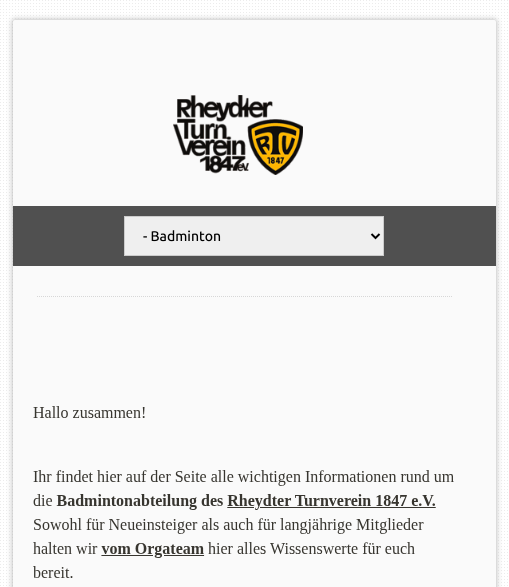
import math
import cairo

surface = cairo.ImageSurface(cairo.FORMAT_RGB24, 509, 587)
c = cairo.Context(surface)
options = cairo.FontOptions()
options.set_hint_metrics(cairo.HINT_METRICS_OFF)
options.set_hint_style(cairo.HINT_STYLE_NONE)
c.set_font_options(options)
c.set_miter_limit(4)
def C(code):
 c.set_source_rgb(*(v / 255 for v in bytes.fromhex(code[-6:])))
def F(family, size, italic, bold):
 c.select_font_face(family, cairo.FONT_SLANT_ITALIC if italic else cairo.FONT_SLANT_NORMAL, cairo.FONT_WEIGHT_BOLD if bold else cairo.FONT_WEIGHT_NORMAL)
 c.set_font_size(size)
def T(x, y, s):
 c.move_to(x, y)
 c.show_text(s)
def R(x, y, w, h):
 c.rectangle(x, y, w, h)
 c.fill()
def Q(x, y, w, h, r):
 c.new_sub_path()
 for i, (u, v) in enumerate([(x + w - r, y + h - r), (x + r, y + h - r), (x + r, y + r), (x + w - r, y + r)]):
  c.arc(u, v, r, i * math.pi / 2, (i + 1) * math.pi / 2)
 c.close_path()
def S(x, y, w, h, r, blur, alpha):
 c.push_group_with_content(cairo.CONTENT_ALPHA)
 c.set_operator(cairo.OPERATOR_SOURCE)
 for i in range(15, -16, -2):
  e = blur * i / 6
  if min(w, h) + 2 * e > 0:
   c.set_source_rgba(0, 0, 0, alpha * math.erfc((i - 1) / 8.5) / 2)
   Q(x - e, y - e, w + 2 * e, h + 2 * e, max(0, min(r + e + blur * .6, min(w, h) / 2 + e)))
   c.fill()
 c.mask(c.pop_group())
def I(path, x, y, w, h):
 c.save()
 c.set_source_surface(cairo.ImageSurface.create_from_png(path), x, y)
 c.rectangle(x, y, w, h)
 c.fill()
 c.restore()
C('ffffff')
c.paint()
I('1.png',0,0,509,587)
C('adadad')
S(13,20,483,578,2,3,1)
C('fafafa')
Q(13,20,483,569,2)
c.fill()
I('2.png',173,95,130,80)
C('505050')
R(13,206,483,60)
C('efefef')
c.rectangle(124.5,216.5,259,39)
c.fill_preserve()
C('cccccc')
c.set_line_width(1)
c.stroke()
c.new_path()
c.move_to(371.5,234)
c.line_to(375.5,238)
c.line_to(379.5,234)
C('000000')
c.set_line_width(2)
c.stroke()
F('Ubuntu Medium',14,0,0)
T(143,241,'- Badminton')
c.new_path()
c.move_to(37,296.5)
c.line_to(452,296.5)
C('d7d7d7')
c.set_line_width(1)
c.set_dash([1,1])
c.stroke()
I('3.png',33,406,421,172)
surface.write_to_png('o.png')
